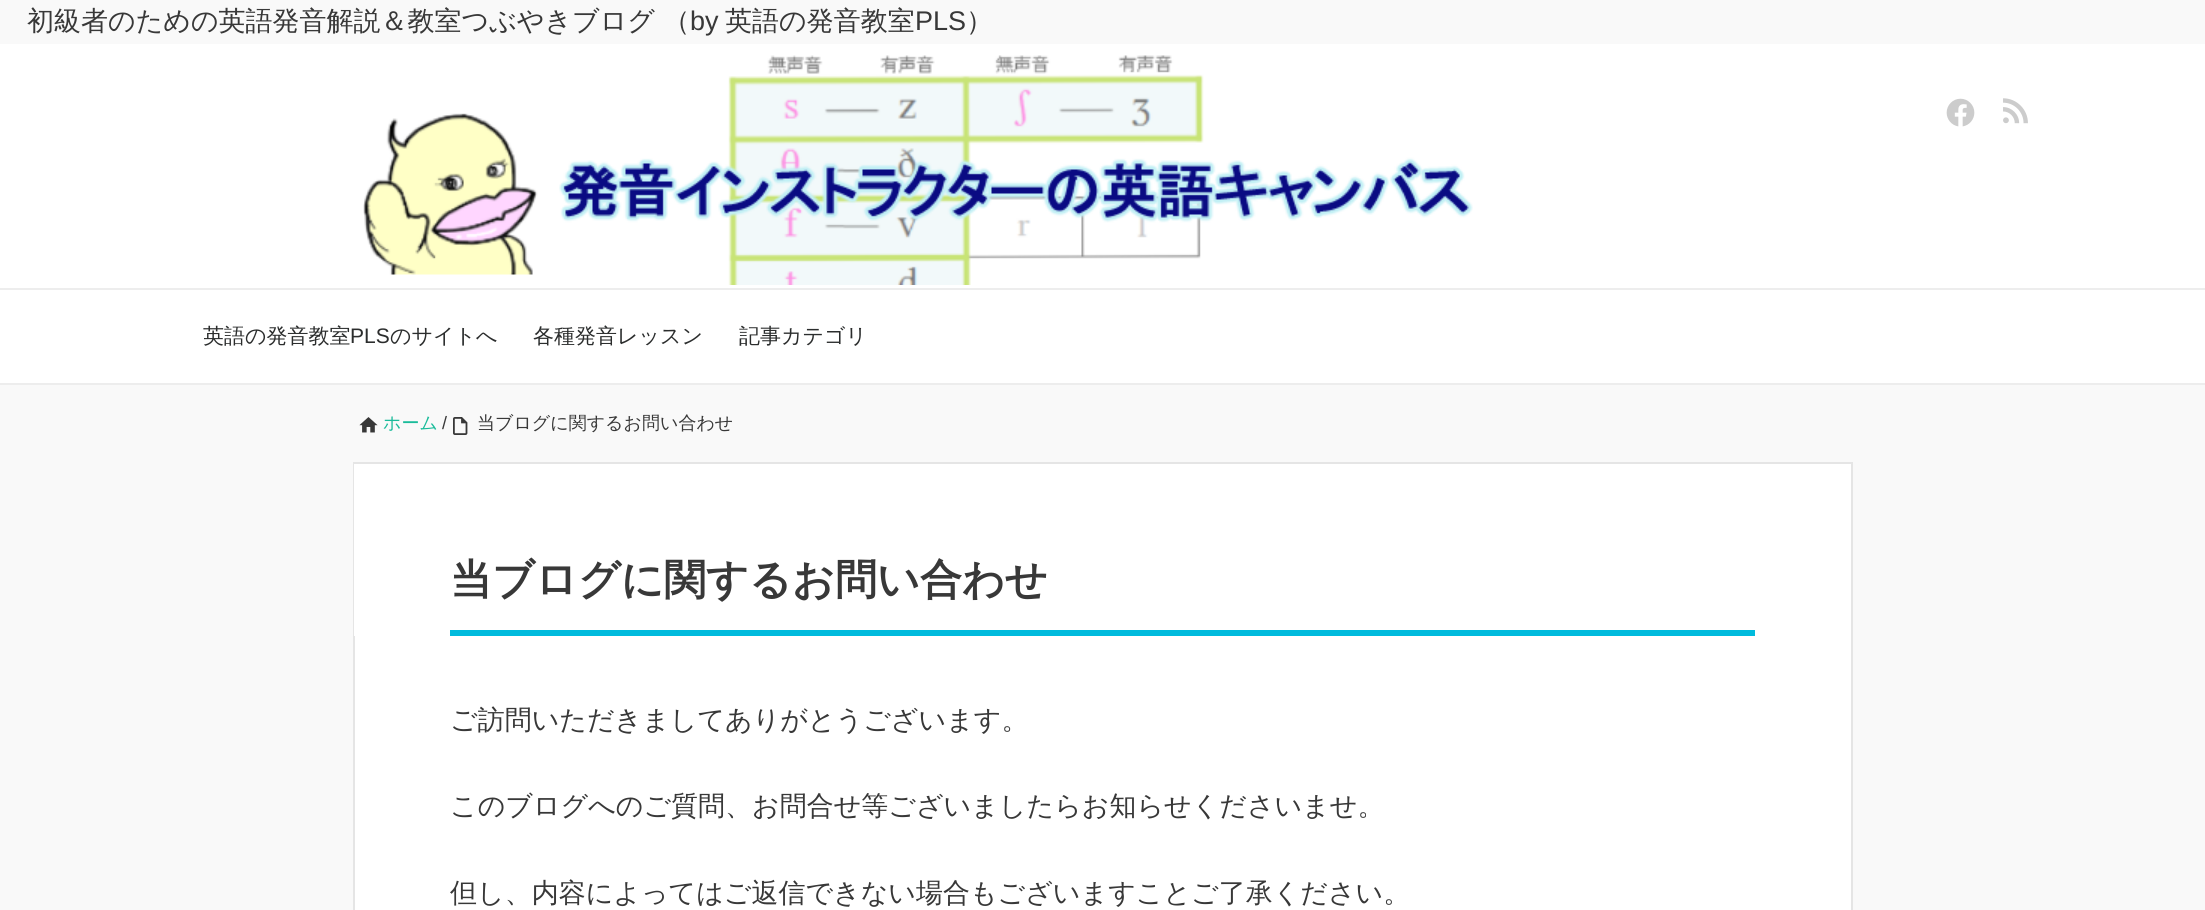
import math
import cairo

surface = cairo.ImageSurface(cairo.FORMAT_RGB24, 2205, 910)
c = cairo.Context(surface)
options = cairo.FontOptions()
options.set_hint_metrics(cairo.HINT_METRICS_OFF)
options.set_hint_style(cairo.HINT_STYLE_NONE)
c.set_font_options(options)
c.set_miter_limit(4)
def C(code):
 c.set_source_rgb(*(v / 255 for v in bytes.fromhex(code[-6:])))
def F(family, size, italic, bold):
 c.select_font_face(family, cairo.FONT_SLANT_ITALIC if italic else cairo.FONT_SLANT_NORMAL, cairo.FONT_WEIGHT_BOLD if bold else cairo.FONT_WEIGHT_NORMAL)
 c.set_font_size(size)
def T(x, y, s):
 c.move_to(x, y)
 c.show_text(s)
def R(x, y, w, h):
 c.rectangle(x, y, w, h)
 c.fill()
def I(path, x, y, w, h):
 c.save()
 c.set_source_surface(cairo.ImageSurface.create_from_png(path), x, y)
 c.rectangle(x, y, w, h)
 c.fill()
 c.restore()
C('f9f9f9')
c.paint()
F('WenQuanYi Zen Hei Medium',27,0,0)
C('383838')
T(27,30,'初級者のための英語発音解説＆教室つぶやきブログ （')
F('Liberation Sans',27,0,0)
T(690,30,'by')
F('WenQuanYi Zen Hei Medium',27,0,0)
T(725,30,'英語の発音教室')
F('Liberation Sans',27,0,0)
T(915,30,'PLS')
F('WenQuanYi Zen Hei Medium',27,0,0)
T(966,30,'）')
C('ffffff')
R(0,44,2205,244)
I('1.png',363,55,1110,230)
I('2.png',1946,98,29,29)
I('3.png',2003,98,25,26)
R(0,290,2205,93)
C('ededed')
R(0,288,2205,2)
R(0,383,2205,2)
F('WenQuanYi Zen Hei Medium',21,0,0)
C('2b2d2d')
T(203,343,'英語の発音教室')
F('Liberation Sans',21,0,0)
T(350,343,'PLS')
F('WenQuanYi Zen Hei Medium',21,0,0)
T(390,343,'のサイトへ')
T(533,343,'各種発音レッスン')
T(739,343,'記事カテゴリ')
I('4.png',359,417,19,16)
F('WenQuanYi Zen Hei Medium',18,0,0)
C('1abb9a')
T(383,429,'ホーム')
F('Liberation Sans',18,0,0)
C('383838')
T(442,429,'/')
I('5.png',453,417,15,18)
F('WenQuanYi Zen Hei Medium',18,0,0)
T(477,429,'当ブログに関するお問い合わせ')
C('ffffff')
R(355,636,1496,274)
c.rectangle(354,463,1498,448)
C('e5e5e5')
c.stroke()
C('ffffff')
R(354,464,1497,172)
C('00bbdd')
R(450,630,1305,6)
F('WenQuanYi Zen Hei',42,0,1)
C('383838')
T(450,594,'当ブログに関するお問い合わせ')
F('WenQuanYi Zen Hei Medium',27,0,0)
T(450,729,'ご訪問いただきましてありがとうございます。')
T(450,815,'このブログへのご質問、お問合せ等ございましたらお知らせくださいませ。')
T(450,902,'但し、内容によってはご返信できない場合もございますことご了承ください。')
surface.write_to_png('o.png')
